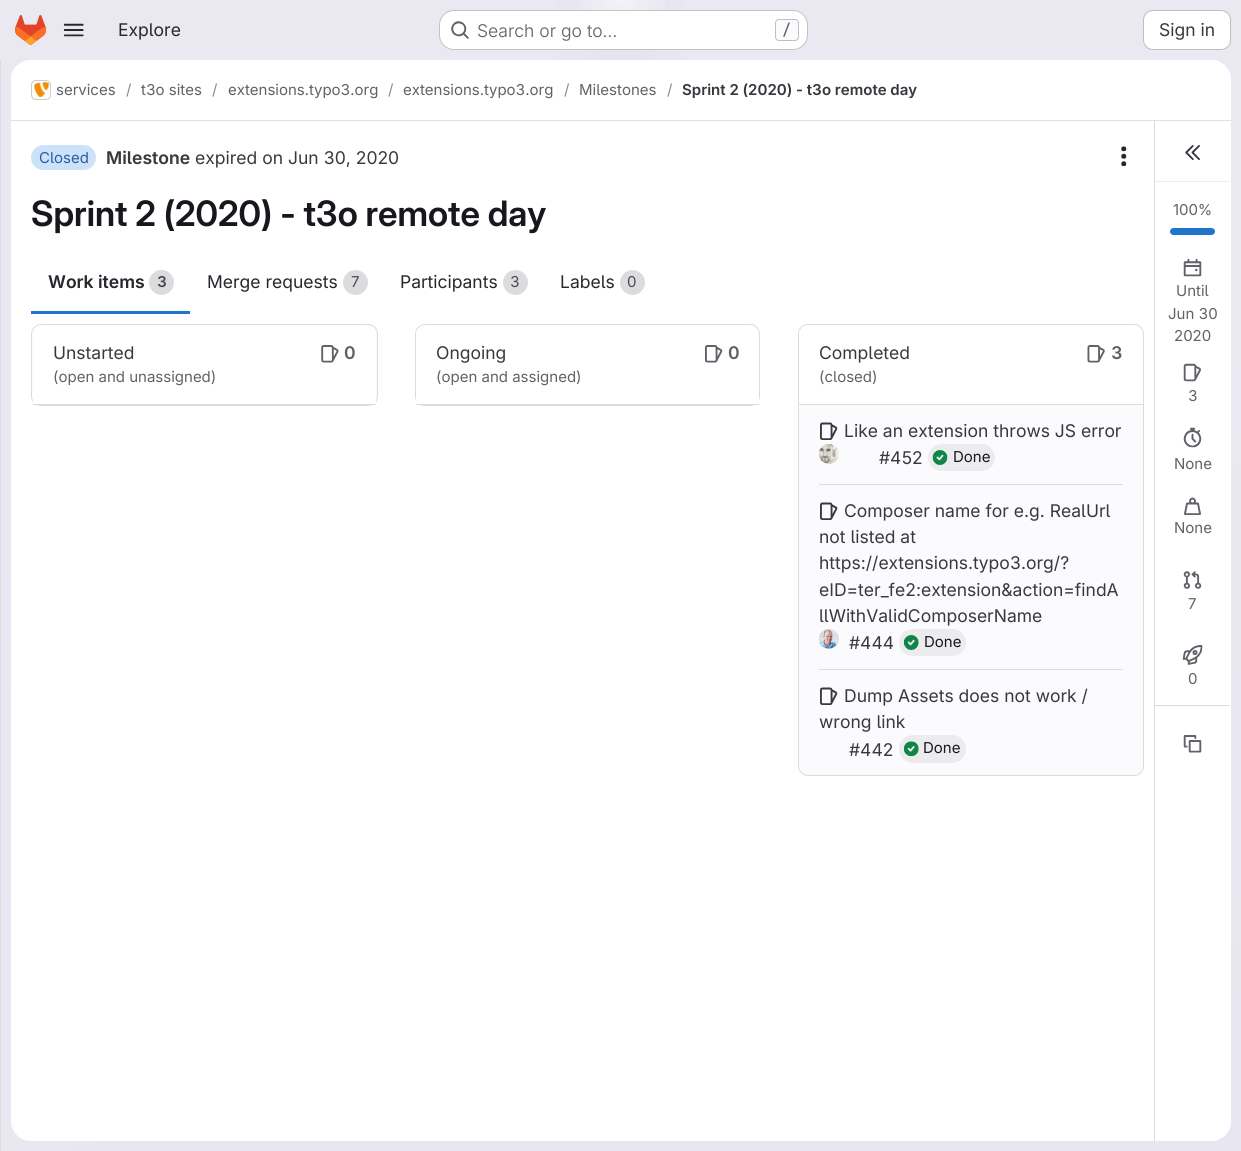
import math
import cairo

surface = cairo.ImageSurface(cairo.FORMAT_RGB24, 1241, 1151)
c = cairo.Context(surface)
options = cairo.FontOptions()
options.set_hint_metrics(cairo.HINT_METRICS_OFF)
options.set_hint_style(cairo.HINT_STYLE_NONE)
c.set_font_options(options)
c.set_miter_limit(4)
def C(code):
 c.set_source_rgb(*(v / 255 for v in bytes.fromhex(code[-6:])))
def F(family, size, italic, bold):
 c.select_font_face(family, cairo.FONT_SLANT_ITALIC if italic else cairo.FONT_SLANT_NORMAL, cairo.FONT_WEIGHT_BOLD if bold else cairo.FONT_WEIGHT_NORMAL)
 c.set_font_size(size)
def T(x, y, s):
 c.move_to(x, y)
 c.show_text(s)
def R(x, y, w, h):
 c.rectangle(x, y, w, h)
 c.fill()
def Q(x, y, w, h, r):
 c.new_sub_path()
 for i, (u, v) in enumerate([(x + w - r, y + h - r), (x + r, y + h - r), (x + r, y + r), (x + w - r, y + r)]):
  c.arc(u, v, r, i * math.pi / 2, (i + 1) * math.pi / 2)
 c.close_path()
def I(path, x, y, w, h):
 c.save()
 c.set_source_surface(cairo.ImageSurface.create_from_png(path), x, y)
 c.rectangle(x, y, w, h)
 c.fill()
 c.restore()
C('ffffff')
c.paint()
gradient = cairo.LinearGradient(738,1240,503,-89)
gradient.add_color_stop_rgba(0,0.91,0.902,0.941,1)
gradient.add_color_stop_rgba(.7,0.918,0.914,0.949,1)
c.set_source(gradient)
R(0,0,1241,1151)
gradient = cairo.RadialGradient(0,0,0,0,0,1)
gradient.set_matrix(cairo.Matrix(1 / 621, 0, 0, 1 / 1151, -1 * 621 / 621, -1 * 0 / 1151))
gradient.add_color_stop_rgba(0,0.894,0.886,0.929,1)
gradient.add_color_stop_rgba(.14,0.894,0.886,0.929,0)
c.set_source(gradient)
R(558,0,126,60)
gradient = cairo.RadialGradient(0,0,0,0,0,1)
gradient.set_matrix(cairo.Matrix(1 / 621, 0, 0, 1 / 1151, -1 * 621 / 621, -1 * 0 / 1151))
gradient.add_color_stop_rgba(0,0.894,0.886,0.925,1)
gradient.add_color_stop_rgba(.1,0.894,0.886,0.925,0)
c.set_source(gradient)
R(597,2,48,44)
gradient = cairo.RadialGradient(621,0,0,621,0,1308)
gradient.add_color_stop_rgba(0,1,1,1,.6)
gradient.add_color_stop_rgba(.04,1,1,1,0)
c.set_source(gradient)
R(577,0,88,10)
I('1.png',15,15,31,30)
I('2.png',63,23,21,14)
F('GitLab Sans',17.5,0,0)
C('28272d')
T(118,36,'Explore')
C('ffffff')
Q(439,10,369,40,15)
c.fill()
Q(439.5,10.5,368,39,14.5)
c.set_source_rgba(0.02,0.02,0.024,0.24)
c.set_line_width(1)
c.stroke()
I('3.png',451,21,18,18)
F('GitLab Sans Light',17.5,0,0)
C('626168')
T(477,37,'Search or go to…')
C('fbfafd')
Q(775.5,19.5,23,21,3.5)
c.fill_preserve()
C('bfbfc3')
c.stroke()
F('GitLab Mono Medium',15,0,0)
C('626168')
T(782,35,'/')
C('ffffff')
Q(1143.5,10.5,87,39,9.5)
c.fill_preserve()
C('bfbfc3')
c.stroke()
F('GitLab Sans',17.5,0,0)
C('3a383f')
T(1159,36,'Sign in')
C('dcdcde')
R(0,60,1,1091)
C('ffffff')
Q(11,60,1220,1081,20)
c.fill()
c.new_path()
c.move_to(31,60)
c.line_to(1211,60)
c.curve_to(1222,60,1231,69,1231,80)
c.line_to(1231,121)
c.line_to(11,121)
c.line_to(11,80)
c.curve_to(11,69,20,60,31,60)
c.close_path()
c.fill()
C('e1dfec')
R(11,120,1220,1)
Q(31.5,80.5,19,19,4.5)
C('dcdcde')
c.stroke()
I('4.png',34,81,17,18)
Q(31.5,80.5,19,19,4.5)
c.set_source_rgba(0.02,0.02,0.024,0.08)
c.stroke()
F('GitLab Sans',15,0,0)
C('626168')
T(56,95,'services')
C('89888d')
T(126,95,'/')
C('626168')
T(141,95,'t3o sites')
C('89888d')
T(212,95,'/')
C('626168')
T(228,95,'extensions.typo3.org')
C('89888d')
T(388,95,'/')
C('626168')
T(403,95,'extensions.typo3.org')
C('89888d')
T(564,95,'/')
C('626168')
T(579,95,'Milestones')
C('89888d')
T(667,95,'/')
F('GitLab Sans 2 SemiBold',15,0,0)
C('3a383f')
T(682,95,'Sprint 2 (2020) - t3o remote day')
C('cbe2f9')
Q(31,145,65,25,12.5)
c.fill()
F('GitLab Sans',15,0,0)
C('2f5ca0')
T(39,163,'Closed')
F('GitLab Sans 2 SemiBold',17.5,0,0)
C('3a383f')
T(106,164,'Milestone')
F('GitLab Sans',17.5,0,0)
T(195,164,'expired on Jun 30, 2020')
I('5.png',1121,146,6,21)
F('GitLab Sans SemiBold',35,0,0)
C('18171d')
T(31,226,'Sprint 2 (2020) - t3o remote day')
C('ffffff')
c.new_path()
c.move_to(1154,121)
c.line_to(1231,121)
c.line_to(1231,1121)
c.curve_to(1231,1132,1222,1141,1211,1141)
c.line_to(1154,1141)
c.close_path()
c.fill()
C('dcdcde')
R(1154,121,1,1020)
C('ececef')
R(1155,181,75,1)
I('6.png',1185,145,15,15)
F('GitLab Sans',15,0,0)
C('626168')
T(1173,215,'100%')
C('1f75cb')
Q(1170,228,45,7,3.5)
c.fill()
I('7.png',1183,258,19,19)
C('626168')
T(1176,296,'Until')
T(1168,319,'Jun 30')
T(1174,341,'2020')
I('8.png',1183,363,18,19)
T(1188,401,'3')
I('9.png',1183,427,19,21)
T(1174,469,'None')
I('10.png',1184,497,17,18)
T(1174,533,'None')
I('11.png',1183,571,19,18)
T(1188,609,'7')
I('12.png',1182,645,21,20)
T(1188,684,'0')
C('dcdcde')
R(1155,705,75,1)
I('13.png',1183,735,19,18)
F('GitLab Sans 2 SemiBold',17.5,0,0)
C('28272d')
T(48,288,'Work items')
C('dcdcde')
c.new_path()
c.arc(161.5,282.5,12.5,0,2 * math.pi)
c.fill()
F('GitLab Sans 2 SemiBold',15,0,0)
C('4c4b51')
T(157,287,'3')
C('1f75cb')
R(31,311,159,3)
F('GitLab Sans',17.5,0,0)
C('28272d')
T(207,288,'Merge requests')
C('dcdcde')
c.new_path()
c.arc(355.5,282.5,12.5,0,2 * math.pi)
c.fill()
F('GitLab Sans',15,0,0)
C('4c4b51')
T(351,287,'7')
F('GitLab Sans',17.5,0,0)
C('28272d')
T(400,288,'Participants')
C('dcdcde')
c.new_path()
c.arc(515.5,282.5,12.5,0,2 * math.pi)
c.fill()
F('GitLab Sans',15,0,0)
C('4c4b51')
T(510,287,'3')
F('GitLab Sans',17.5,0,0)
C('28272d')
T(560,288,'Labels')
C('dcdcde')
c.new_path()
c.arc(632.5,282.5,12.5,0,2 * math.pi)
c.fill()
F('GitLab Sans',15,0,0)
C('4c4b51')
T(627,287,'0')
C('fbfafd')
Q(31.5,324.5,346,81,9.5)
c.fill_preserve()
C('dcdcde')
c.stroke()
C('ffffff')
c.new_path()
c.move_to(43,325)
c.line_to(366,325)
c.curve_to(371.5,325,376,329.5,376,335)
c.line_to(376,405)
c.line_to(33,405)
c.line_to(33,335)
c.curve_to(33,329.5,37.5,325,43,325)
c.close_path()
c.fill()
C('dcdcde')
R(33,404,343,1)
F('GitLab Sans',17.5,0,0)
C('3a383f')
T(53,359,'Unstarted')
F('GitLab Sans',15,0,0)
C('626168')
T(53,382,'(open and unassigned)')
I('14.png',321,345,18,18)
F('GitLab Sans 2 SemiBold',17.5,0,0)
T(344,359,'0')
C('fbfafd')
Q(415.5,324.5,344,81,9.5)
c.fill_preserve()
C('dcdcde')
c.stroke()
C('ffffff')
c.new_path()
c.move_to(426,325)
c.line_to(749,325)
c.curve_to(754.5,325,759,329.5,759,335)
c.line_to(759,405)
c.line_to(416,405)
c.line_to(416,335)
c.curve_to(416,329.5,420.5,325,426,325)
c.close_path()
c.fill()
C('dcdcde')
R(416,404,343,1)
F('GitLab Sans',17.5,0,0)
C('3a383f')
T(436,359,'Ongoing')
F('GitLab Sans',15,0,0)
C('626168')
T(436,382,'(open and assigned)')
I('15.png',705,345,18,18)
F('GitLab Sans 2 SemiBold',17.5,0,0)
T(728,359,'0')
C('fbfafd')
Q(798.5,324.5,345,451,9.5)
c.fill_preserve()
C('dcdcde')
c.stroke()
C('ffffff')
c.new_path()
c.move_to(809,325)
c.line_to(1133,325)
c.curve_to(1138.5,325,1143,329.5,1143,335)
c.line_to(1143,405)
c.line_to(799,405)
c.line_to(799,335)
c.curve_to(799,329.5,803.5,325,809,325)
c.close_path()
c.fill()
C('dcdcde')
R(799,404,344,1)
F('GitLab Sans',17.5,0,0)
C('3a383f')
T(819,359,'Completed')
F('GitLab Sans',15,0,0)
C('626168')
T(819,382,'(closed)')
I('16.png',1087,345,18,18)
F('GitLab Sans 2 SemiBold',17.5,0,0)
T(1111,359,'3')
C('dcdcde')
R(819,484,304,1)
I('17.png',820,422,18,18)
F('GitLab Sans',17.5,0,0)
C('3a383f')
T(844,437,'Like an extension throws JS error')
c.new_path()
c.arc(829,454,9.5,0,2 * math.pi)
C('e7e6e9')
c.stroke()
I('18.png',819,444,20,20)
C('3a383f')
T(879,464,'#452')
C('ececef')
Q(928,444,67,27,13.5)
c.fill()
I('19.png',932,450,16,15)
F('GitLab Sans',15,0,0)
C('18171d')
T(953,462,'Done')
C('dcdcde')
R(819,669,304,1)
I('20.png',820,502,18,18)
F('GitLab Sans',17.5,0,0)
C('3a383f')
T(844,517,'Composer name for e.g. RealUrl')
T(819,543,'not listed at')
T(819,569,'https://extensions.typo3.org/?')
T(819,596,'eID=ter_fe2:extension&action=findA')
T(819,622,'llWithValidComposerName')
c.new_path()
c.arc(829,639,9.5,0,2 * math.pi)
C('e7e6e9')
c.stroke()
I('21.png',819,629,20,20)
C('3a383f')
T(849,649,'#444')
C('ececef')
Q(899,629,67,27,13.5)
c.fill()
I('22.png',903,635,16,15)
F('GitLab Sans',15,0,0)
C('18171d')
T(924,647,'Done')
I('17.png',820,687,18,18)
F('GitLab Sans',17.5,0,0)
C('3a383f')
T(844,702,'Dump Assets does not work /')
T(819,728,'wrong link')
T(849,756,'#442')
C('ececef')
Q(899,735,67,28,14)
c.fill()
I('23.png',903,741,16,16)
F('GitLab Sans',15,0,0)
C('18171d')
T(923,753,'Done')
surface.write_to_png('o.png')
